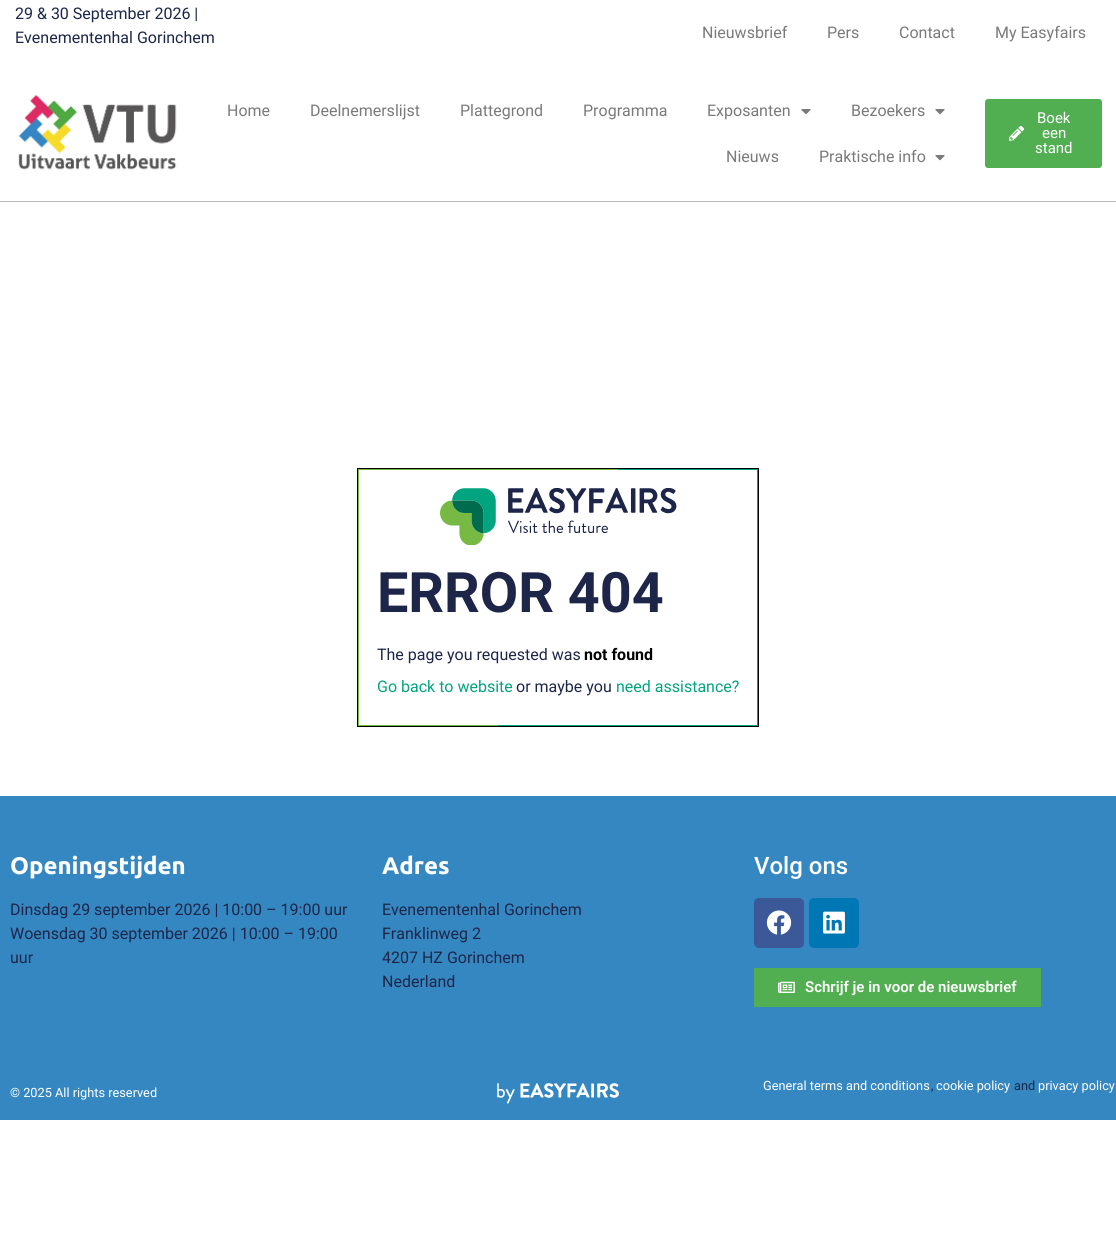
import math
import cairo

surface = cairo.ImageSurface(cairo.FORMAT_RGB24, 1116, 1257)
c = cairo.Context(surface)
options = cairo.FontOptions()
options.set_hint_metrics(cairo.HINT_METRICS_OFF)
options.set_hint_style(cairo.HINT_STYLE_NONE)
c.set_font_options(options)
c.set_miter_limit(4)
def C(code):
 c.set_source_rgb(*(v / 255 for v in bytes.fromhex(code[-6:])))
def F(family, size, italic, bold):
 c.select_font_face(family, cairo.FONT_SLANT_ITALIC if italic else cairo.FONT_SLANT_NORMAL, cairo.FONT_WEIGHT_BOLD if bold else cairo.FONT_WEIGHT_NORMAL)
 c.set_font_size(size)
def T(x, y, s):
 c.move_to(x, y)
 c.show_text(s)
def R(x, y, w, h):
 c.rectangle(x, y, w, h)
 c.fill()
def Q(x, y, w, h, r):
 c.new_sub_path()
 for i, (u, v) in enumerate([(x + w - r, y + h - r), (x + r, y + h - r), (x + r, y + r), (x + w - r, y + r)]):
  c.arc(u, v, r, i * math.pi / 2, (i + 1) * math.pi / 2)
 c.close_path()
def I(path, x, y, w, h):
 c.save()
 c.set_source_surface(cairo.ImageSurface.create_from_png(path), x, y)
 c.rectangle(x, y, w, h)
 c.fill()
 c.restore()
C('ffffff')
c.paint()
F('Roboto',16,0,0)
C('1d2649')
T(15,19,'29 & 30 September 2026 |')
T(15,43,'Evenementenhal Gorinchem')
C('7a7a7a')
T(702,38,'Nieuwsbrief')
T(827,38,'Pers')
T(899,38,'Contact')
T(995,38,'My Easyfairs')
C('bababa')
R(0,201,1116,1)
I('1.png',18,94,159,76)
C('7a7a7a')
T(227,116,'Home')
T(310,116,'Deelnemerslijst')
T(460,116,'Plattegrond')
T(583,116,'Programma')
T(707,116,'Exposanten')
I('2.png',801,109,10,6)
T(851,116,'Bezoekers')
I('2.png',935,109,10,6)
T(726,162,'Nieuws')
T(819,162,'Praktische info')
I('2.png',935,155,10,6)
C('51ae51')
Q(985,99,117,69,3)
c.fill()
I('3.png',1009,125,15,16)
F('Roboto',15,0,0)
C('ffffff')
T(1037,123,'Boek')
T(1042,138,'een')
T(1035,153,'stand')
I('4.png',440,488,237,57)
c.rectangle(357.5,468.5,401,258)
C('000000')
c.set_line_width(1)
c.stroke()
C('76ba43')
c.new_path()
c.move_to(359,470)
c.line_to(359,725)
c.line_to(498,725)
c.line_to(498,726)
c.line_to(358,726)
c.line_to(358,469)
c.line_to(618,469)
c.line_to(618,470)
c.close_path()
c.fill()
C('00a57f')
c.new_path()
c.move_to(618,469)
c.line_to(758,469)
c.line_to(758,726)
c.line_to(498,726)
c.line_to(498,725)
c.line_to(757,725)
c.line_to(757,470)
c.line_to(618,470)
c.close_path()
c.fill()
F('Roboto',55.75,0,1)
C('1d2649')
T(377,612,'ERROR 404')
F('Roboto',16,0,0)
T(377,660,'The page you requested was')
F('Roboto',16,0,1)
C('000000')
T(584,660,'not found')
F('Roboto',16,0,0)
C('00a57f')
T(377,692,'Go back to website')
C('1d2649')
T(516,692,'or maybe you')
C('00a57f')
T(616,692,'need assistance?')
C('3587c1')
R(0,796,1116,324)
F('Ubuntu',24,0,1)
C('ffffff')
T(10,874,'Openingstijden')
F('Roboto',16,0,0)
C('1d2649')
T(10,915,'Dinsdag 29 september 2026 | 10:00 – 19:00 uur')
T(10,939,'Woensdag 30 september 2026 | 10:00 – 19:00')
T(10,963,'uur')
F('Ubuntu',24,0,1)
C('ffffff')
T(382,874,'Adres')
F('Roboto',16,0,0)
C('1d2649')
T(382,915,'Evenementenhal Gorinchem')
T(382,939,'Franklinweg 2')
T(382,963,'4207 HZ Gorinchem')
T(382,987,'Nederland')
F('Roboto Medium',24,0,0)
C('ffffff')
T(754,874,'Volg ons')
C('3b5998')
Q(754,898,50,50,5)
c.fill()
I('5.png',766,910,26,25)
C('0077b5')
Q(809,898,50,50,5)
c.fill()
I('6.png',823,911,22,23)
C('51af51')
R(754,968,287,39)
I('7.png',778,981,17,12)
F('Roboto SemiBold',15,0,0)
C('ffffff')
T(805,992,'Schrijf je in voor de nieuwsbrief')
F('Roboto',12.75,0,0)
T(10,1097,'© 2025 All rights reserved')
I('8.png',497,1083,122,21)
T(763,1090,'General terms and conditions')
C('1d2649')
T(931,1090,',')
C('ffffff')
T(936,1090,'cookie policy')
C('1d2649')
T(1014,1090,'and')
C('ffffff')
T(1038,1090,'privacy policy')
surface.write_to_png('o.png')
